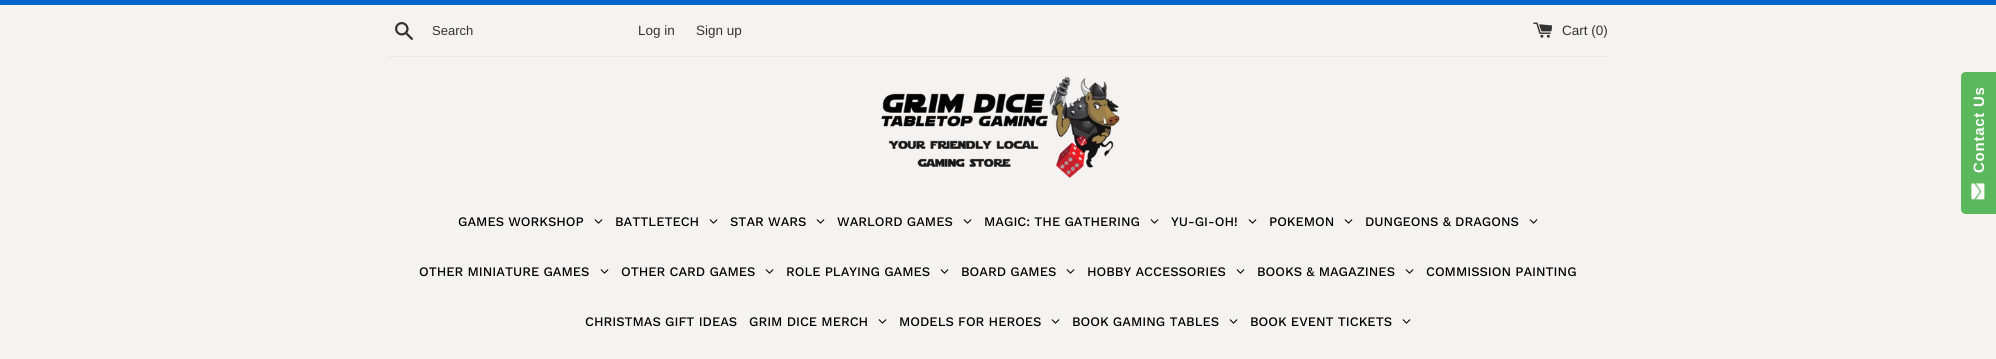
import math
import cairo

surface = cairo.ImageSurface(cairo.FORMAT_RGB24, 1996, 359)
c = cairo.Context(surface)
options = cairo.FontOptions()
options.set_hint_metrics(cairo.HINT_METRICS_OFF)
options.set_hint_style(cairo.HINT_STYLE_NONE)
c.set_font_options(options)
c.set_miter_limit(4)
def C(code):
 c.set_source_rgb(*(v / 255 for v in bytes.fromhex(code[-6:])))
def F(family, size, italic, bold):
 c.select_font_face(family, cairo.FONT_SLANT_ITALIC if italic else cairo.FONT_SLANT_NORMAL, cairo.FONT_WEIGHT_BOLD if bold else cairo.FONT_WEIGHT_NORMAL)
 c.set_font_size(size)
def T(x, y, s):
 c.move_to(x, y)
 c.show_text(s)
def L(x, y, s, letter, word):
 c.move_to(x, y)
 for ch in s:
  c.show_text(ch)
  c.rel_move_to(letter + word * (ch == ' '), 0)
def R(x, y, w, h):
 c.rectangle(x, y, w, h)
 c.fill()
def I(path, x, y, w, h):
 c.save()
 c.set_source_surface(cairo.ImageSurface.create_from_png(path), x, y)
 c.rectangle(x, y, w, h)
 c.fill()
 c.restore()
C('f5f3f2')
c.paint()
C('0066cc')
R(0,0,1996,5)
I('1.png',395,22,18,18)
F('Liberation Sans',13,0,0)
C('333333')
T(432,35,'Search')
F('Liberation Sans',13.5,0,0)
T(638,35,'Log in')
T(696,35,'Sign up')
I('2.png',1533,22,20,16)
T(1562,35,'Cart (0)')
C('e8e8e8')
R(388,56,1220,1)
I('3.png',881,76,239,102)
F('Work Sans Medium',13,0,0)
C('000000')
T(458,226,'GAMES WORKSHOP')
I('4.png',594,219,9,5)
T(615,226,'BATTLETECH')
I('4.png',709,219,9,5)
T(730,226,'STAR WARS')
I('4.png',816,219,9,5)
T(837,226,'WARLORD GAMES')
I('4.png',963,219,9,5)
T(984,226,'MAGIC: THE GATHERING')
I('4.png',1150,219,9,5)
T(1171,226,'YU-GI-OH!')
I('4.png',1248,219,9,5)
T(1269,226,'POKEMON')
I('4.png',1344,219,9,5)
T(1365,226,'DUNGEONS & DRAGONS')
I('4.png',1529,219,9,5)
T(419,276,'OTHER MINIATURE GAMES')
I('4.png',600,269,9,5)
T(621,276,'OTHER CARD GAMES')
I('4.png',765,269,9,5)
T(786,276,'ROLE PLAYING GAMES')
I('4.png',940,269,9,5)
T(961,276,'BOARD GAMES')
I('4.png',1066,269,9,5)
T(1087,276,'HOBBY ACCESSORIES')
I('4.png',1236,269,9,5)
T(1257,276,'BOOKS & MAGAZINES')
I('4.png',1405,269,9,5)
T(1426,276,'COMMISSION PAINTING')
T(585,326,'CHRISTMAS GIFT IDEAS')
T(749,326,'GRIM DICE MERCH')
I('4.png',878,319,9,5)
T(899,326,'MODELS FOR HEROES')
I('4.png',1051,319,9,5)
T(1072,326,'BOOK GAMING TABLES')
I('4.png',1229,319,9,5)
T(1250,326,'BOOK EVENT TICKETS')
I('4.png',1402,319,9,5)
C('5cb85c')
c.new_path()
c.move_to(1961,209)
c.line_to(1961,77)
c.curve_to(1961,74,1963,72,1966,72)
c.line_to(1996,72)
c.line_to(1996,214)
c.line_to(1966,214)
c.curve_to(1963,214,1961,212,1961,209)
c.close_path()
c.fill()
F('Liberation Sans',15,0,1)
C('ffffff')
c.save()
c.translate(1984,173)
c.rotate(-90 * math.pi / 180)
L(0,0,'Contact Us',.75,0)
c.restore()
I('5.png',1971,182,14,18)
surface.write_to_png('o.png')
